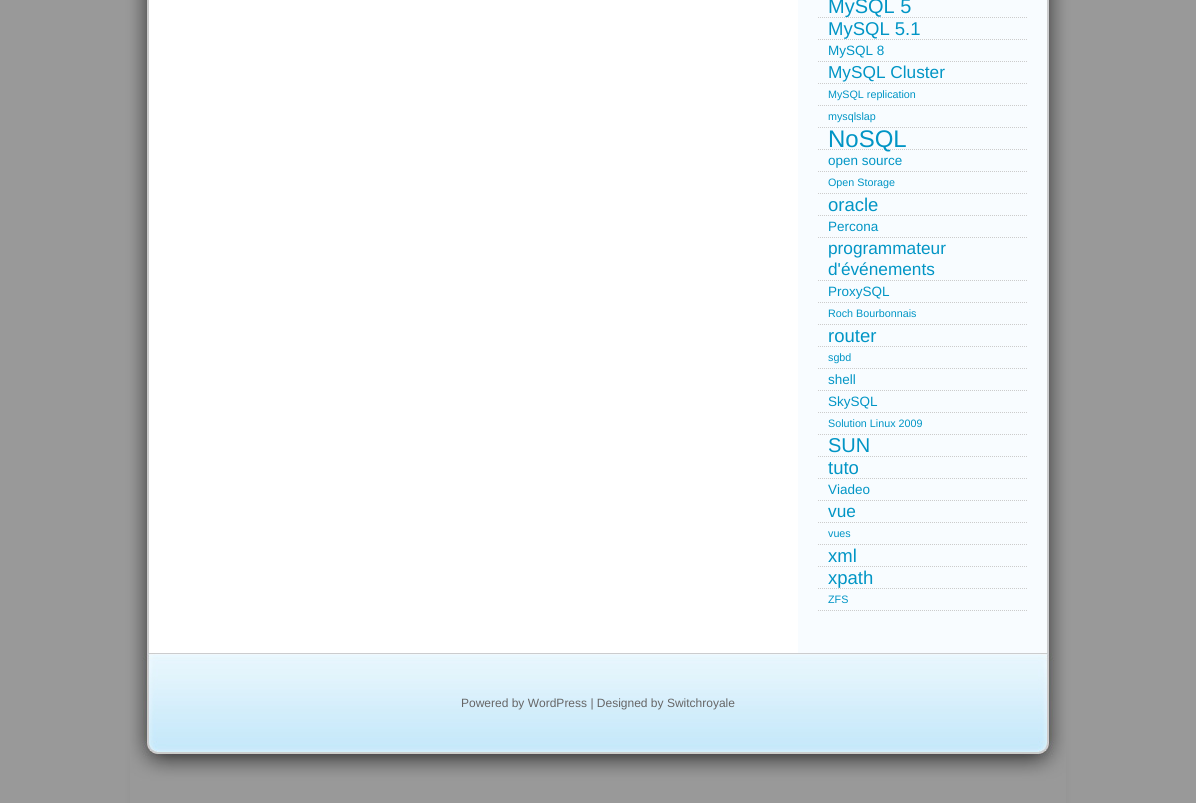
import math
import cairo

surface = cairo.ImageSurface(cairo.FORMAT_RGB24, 1196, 803)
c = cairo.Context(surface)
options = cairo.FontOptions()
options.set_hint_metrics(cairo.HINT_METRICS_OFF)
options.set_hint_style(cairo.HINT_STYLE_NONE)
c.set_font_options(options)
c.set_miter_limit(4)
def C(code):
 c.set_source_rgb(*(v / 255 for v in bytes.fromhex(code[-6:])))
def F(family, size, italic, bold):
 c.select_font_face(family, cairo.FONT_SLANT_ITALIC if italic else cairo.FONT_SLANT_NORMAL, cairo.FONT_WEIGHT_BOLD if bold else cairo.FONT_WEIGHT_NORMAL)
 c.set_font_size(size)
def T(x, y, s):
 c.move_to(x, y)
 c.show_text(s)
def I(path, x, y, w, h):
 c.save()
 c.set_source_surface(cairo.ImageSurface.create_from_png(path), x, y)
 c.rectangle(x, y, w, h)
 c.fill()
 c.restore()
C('999999')
c.paint()
I('1.png',118,0,960,803)
c.new_path()
c.move_to(818,17.5)
c.line_to(1028,17.5)
C('cccccc')
c.set_line_width(1)
c.set_dash([1,1])
c.stroke()
F('Liberation Sans',20,0,0)
C('0195c5')
T(828,13,'MySQL 5')
c.new_path()
c.move_to(818,39.5)
c.line_to(1028,39.5)
C('cccccc')
c.stroke()
F('Liberation Sans',18.5,0,0)
C('0195c5')
T(828,35,'MySQL 5.1')
c.new_path()
c.move_to(818,61.5)
c.line_to(1028,61.5)
C('cccccc')
c.stroke()
F('Liberation Sans',13.5,0,0)
C('0195c5')
T(828,55,'MySQL 8')
c.new_path()
c.move_to(818,83.5)
c.line_to(1028,83.5)
C('cccccc')
c.stroke()
F('Liberation Sans',17.25,0,0)
C('0195c5')
T(828,78,'MySQL Cluster')
c.new_path()
c.move_to(818,105.5)
c.line_to(1028,105.5)
C('cccccc')
c.stroke()
F('Liberation Sans',10.75,0,0)
C('0195c5')
T(828,98,'MySQL replication')
c.new_path()
c.move_to(818,127.5)
c.line_to(1028,127.5)
C('cccccc')
c.stroke()
C('0195c5')
T(828,120,'mysqlslap')
c.new_path()
c.move_to(818,149.5)
c.line_to(1028,149.5)
C('cccccc')
c.stroke()
F('Liberation Sans',24,0,0)
C('0195c5')
T(828,147,'NoSQL')
c.new_path()
c.move_to(818,171.5)
c.line_to(1028,171.5)
C('cccccc')
c.stroke()
F('Liberation Sans',13.5,0,0)
C('0195c5')
T(828,165,'open source')
c.new_path()
c.move_to(818,193.5)
c.line_to(1028,193.5)
C('cccccc')
c.stroke()
F('Liberation Sans',10.75,0,0)
C('0195c5')
T(828,186,'Open Storage')
c.new_path()
c.move_to(818,215.5)
c.line_to(1028,215.5)
C('cccccc')
c.stroke()
F('Liberation Sans',18.5,0,0)
C('0195c5')
T(828,211,'oracle')
c.new_path()
c.move_to(818,237.5)
c.line_to(1028,237.5)
C('cccccc')
c.stroke()
F('Liberation Sans',13.5,0,0)
C('0195c5')
T(828,231,'Percona')
c.new_path()
c.move_to(818,280.5)
c.line_to(1028,280.5)
C('cccccc')
c.stroke()
F('Liberation Sans',17.25,0,0)
C('0195c5')
T(828,254,'programmateur')
T(828,275,'d\'événements')
c.new_path()
c.move_to(818,302.5)
c.line_to(1028,302.5)
C('cccccc')
c.stroke()
F('Liberation Sans',13.5,0,0)
C('0195c5')
T(828,296,'ProxySQL')
c.new_path()
c.move_to(818,324.5)
c.line_to(1028,324.5)
C('cccccc')
c.stroke()
F('Liberation Sans',10.75,0,0)
C('0195c5')
T(828,317,'Roch Bourbonnais')
c.new_path()
c.move_to(818,346.5)
c.line_to(1028,346.5)
C('cccccc')
c.stroke()
F('Liberation Sans',18.5,0,0)
C('0195c5')
T(828,342,'router')
c.new_path()
c.move_to(818,368.5)
c.line_to(1028,368.5)
C('cccccc')
c.stroke()
F('Liberation Sans',10.75,0,0)
C('0195c5')
T(828,361,'sgbd')
c.new_path()
c.move_to(818,390.5)
c.line_to(1028,390.5)
C('cccccc')
c.stroke()
F('Liberation Sans',13.5,0,0)
C('0195c5')
T(828,384,'shell')
c.new_path()
c.move_to(818,412.5)
c.line_to(1028,412.5)
C('cccccc')
c.stroke()
C('0195c5')
T(828,406,'SkySQL')
c.new_path()
c.move_to(818,434.5)
c.line_to(1028,434.5)
C('cccccc')
c.stroke()
F('Liberation Sans',10.75,0,0)
C('0195c5')
T(828,427,'Solution Linux 2009')
c.new_path()
c.move_to(818,456.5)
c.line_to(1028,456.5)
C('cccccc')
c.stroke()
F('Liberation Sans',20,0,0)
C('0195c5')
T(828,452,'SUN')
c.new_path()
c.move_to(818,478.5)
c.line_to(1028,478.5)
C('cccccc')
c.stroke()
F('Liberation Sans',18.5,0,0)
C('0195c5')
T(828,474,'tuto')
c.new_path()
c.move_to(818,500.5)
c.line_to(1028,500.5)
C('cccccc')
c.stroke()
F('Liberation Sans',13.5,0,0)
C('0195c5')
T(828,494,'Viadeo')
c.new_path()
c.move_to(818,522.5)
c.line_to(1028,522.5)
C('cccccc')
c.stroke()
F('Liberation Sans',17.25,0,0)
C('0195c5')
T(828,517,'vue')
c.new_path()
c.move_to(818,544.5)
c.line_to(1028,544.5)
C('cccccc')
c.stroke()
F('Liberation Sans',10.75,0,0)
C('0195c5')
T(828,537,'vues')
c.new_path()
c.move_to(818,566.5)
c.line_to(1028,566.5)
C('cccccc')
c.stroke()
F('Liberation Sans',18.5,0,0)
C('0195c5')
T(828,562,'xml')
c.new_path()
c.move_to(818,588.5)
c.line_to(1028,588.5)
C('cccccc')
c.stroke()
C('0195c5')
T(828,584,'xpath')
c.new_path()
c.move_to(818,610.5)
c.line_to(1028,610.5)
C('cccccc')
c.stroke()
F('Liberation Sans',10.75,0,0)
C('0195c5')
T(828,603,'ZFS')
I('2.png',130,653,936,150)
F('Liberation Sans',12,0,0)
C('666666')
T(461,707,'Powered by WordPress | Designed by Switchroyale')
surface.write_to_png('o.png')
